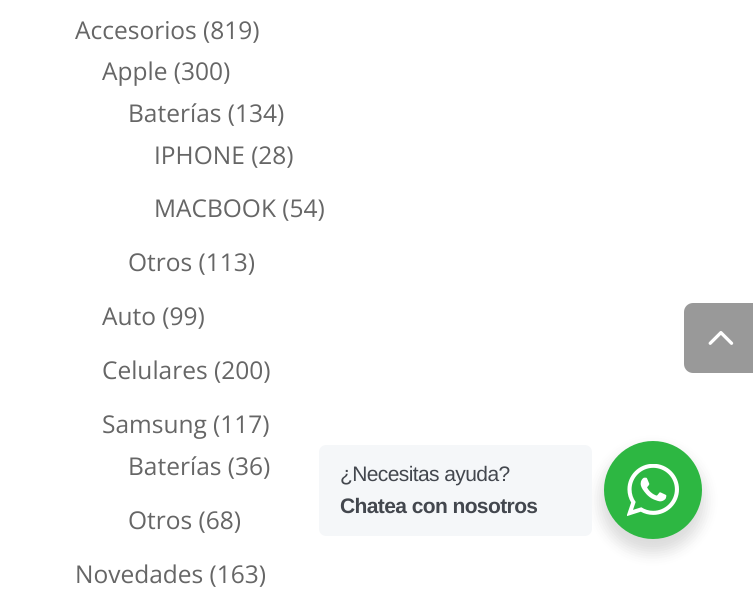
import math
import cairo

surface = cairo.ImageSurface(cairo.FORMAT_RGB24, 753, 591)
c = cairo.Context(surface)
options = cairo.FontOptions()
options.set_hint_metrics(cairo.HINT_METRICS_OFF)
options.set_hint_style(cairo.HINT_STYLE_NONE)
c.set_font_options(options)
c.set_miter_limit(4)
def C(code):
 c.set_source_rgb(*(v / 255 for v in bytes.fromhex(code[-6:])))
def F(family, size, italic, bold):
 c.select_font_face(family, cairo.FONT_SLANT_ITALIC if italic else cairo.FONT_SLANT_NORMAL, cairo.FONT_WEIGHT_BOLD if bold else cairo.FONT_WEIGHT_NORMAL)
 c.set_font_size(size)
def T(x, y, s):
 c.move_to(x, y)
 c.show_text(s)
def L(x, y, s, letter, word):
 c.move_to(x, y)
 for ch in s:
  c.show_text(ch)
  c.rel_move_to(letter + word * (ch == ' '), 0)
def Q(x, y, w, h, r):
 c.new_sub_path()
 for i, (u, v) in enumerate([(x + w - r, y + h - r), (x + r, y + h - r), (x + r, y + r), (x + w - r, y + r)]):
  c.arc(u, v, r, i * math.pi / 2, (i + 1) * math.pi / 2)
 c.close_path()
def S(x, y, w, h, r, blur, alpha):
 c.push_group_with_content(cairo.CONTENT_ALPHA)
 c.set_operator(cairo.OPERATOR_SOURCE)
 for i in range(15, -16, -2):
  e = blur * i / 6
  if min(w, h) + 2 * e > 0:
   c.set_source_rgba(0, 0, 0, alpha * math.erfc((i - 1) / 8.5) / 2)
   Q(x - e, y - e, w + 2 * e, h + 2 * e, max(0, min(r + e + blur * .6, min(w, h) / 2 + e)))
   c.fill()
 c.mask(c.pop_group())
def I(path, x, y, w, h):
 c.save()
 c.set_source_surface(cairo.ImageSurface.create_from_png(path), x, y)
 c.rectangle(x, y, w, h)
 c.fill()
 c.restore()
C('ffffff')
c.paint()
F('Open Sans',24.5,0,0)
C('666666')
T(75,39,'Accesorios (819)')
T(102,80,'Apple (300)')
T(128,122,'Baterías (134)')
T(154,164,'IPHONE (28)')
T(154,217,'MACBOOK (54)')
T(128,271,'Otros (113)')
T(102,325,'Auto (99)')
T(102,379,'Celulares (200)')
T(102,433,'Samsung (117)')
T(128,475,'Baterías (36)')
T(128,529,'Otros (68)')
T(75,583,'Novedades (163)')
C('999999')
c.new_path()
c.move_to(693,303)
c.line_to(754,303)
c.line_to(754,373)
c.line_to(693,373)
c.curve_to(688,373,684,369,684,364)
c.line_to(684,312)
c.curve_to(684,307,688,303,693,303)
c.close_path()
c.fill()
I('1.png',708,331,26,14)
C('000000')
S(600,448,105,105,52.5,7,.14)
C('f5f7f9')
Q(319,445,273,91,7)
c.fill()
F('Liberation Sans',21,0,0)
C('43474e')
L(340,481,'¿Necesitas ayuda?',-.6,0)
F('Liberation Sans',21,0,1)
L(340,513,'Chatea con nosotros',-.6,0)
C('2db742')
c.new_path()
c.arc(653,490,49,0,2 * math.pi)
c.fill()
I('2.png',627,464,52,52)
surface.write_to_png('o.png')
